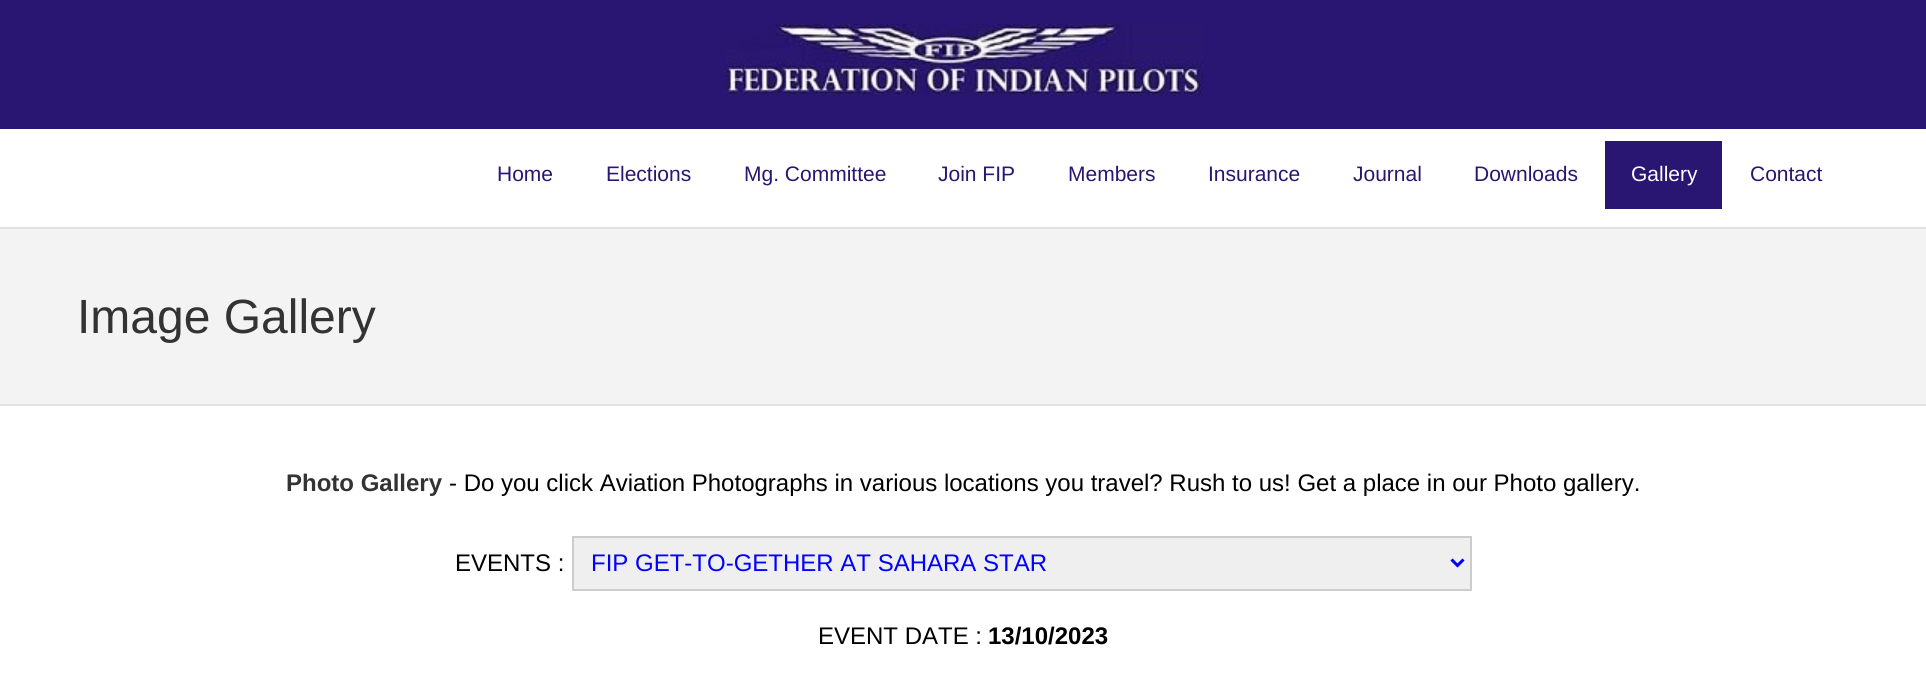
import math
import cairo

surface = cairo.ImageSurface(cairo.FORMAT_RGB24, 1926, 697)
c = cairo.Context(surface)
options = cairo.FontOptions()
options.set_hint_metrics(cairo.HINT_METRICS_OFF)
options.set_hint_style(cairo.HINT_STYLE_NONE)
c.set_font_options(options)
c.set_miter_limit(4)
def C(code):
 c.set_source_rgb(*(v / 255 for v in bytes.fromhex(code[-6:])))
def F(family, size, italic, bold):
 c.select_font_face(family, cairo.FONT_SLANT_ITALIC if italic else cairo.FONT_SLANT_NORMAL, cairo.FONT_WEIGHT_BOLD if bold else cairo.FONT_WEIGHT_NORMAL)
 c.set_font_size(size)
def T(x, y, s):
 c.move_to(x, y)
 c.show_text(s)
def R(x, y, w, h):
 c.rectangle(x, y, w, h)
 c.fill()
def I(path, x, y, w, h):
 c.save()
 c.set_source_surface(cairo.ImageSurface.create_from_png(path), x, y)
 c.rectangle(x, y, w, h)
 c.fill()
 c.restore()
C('ffffff')
c.paint()
C('291672')
R(0,0,1926,129)
I('1.png',724,24,479,72)
F('Liberation Sans',21,0,0)
T(497,181,'Home')
T(606,181,'Elections')
T(744,181,'Mg. Committee')
T(938,181,'Join FIP')
T(1068,181,'Members')
T(1208,181,'Insurance')
T(1353,181,'Journal')
T(1474,181,'Downloads')
R(1605,141,117,68)
C('ffffff')
T(1631,181,'Gallery')
C('291672')
T(1750,181,'Contact')
C('f3f3f3')
R(0,229,1926,175)
C('e2e2e2')
R(0,227,1926,2)
R(0,404,1926,2)
F('Liberation Sans',48,0,0)
C('333333')
T(77,333,'Image Gallery')
F('Liberation Sans',24,0,1)
T(286,491,'Photo Gallery')
F('Liberation Sans',24,0,0)
C('000000')
T(449,491,'- Do you click Aviation Photographs in various locations you travel? Rush to us! Get a place in our Photo gallery.')
T(455,571,'EVENTS :')
C('efefef')
c.rectangle(573,537,898,53)
c.fill_preserve()
C('cccccc')
c.stroke()
c.new_path()
c.move_to(1451.5,559.5)
c.line_to(1457.5,565.5)
c.line_to(1463.5,559.5)
C('0000ff')
c.set_line_width(3)
c.stroke()
T(591,571,'FIP GET-TO-GETHER AT SAHARA STAR')
C('000000')
T(818,644,'EVENT DATE :')
F('Liberation Sans',24,0,1)
T(988,644,'13/10/2023')
surface.write_to_png('o.png')
